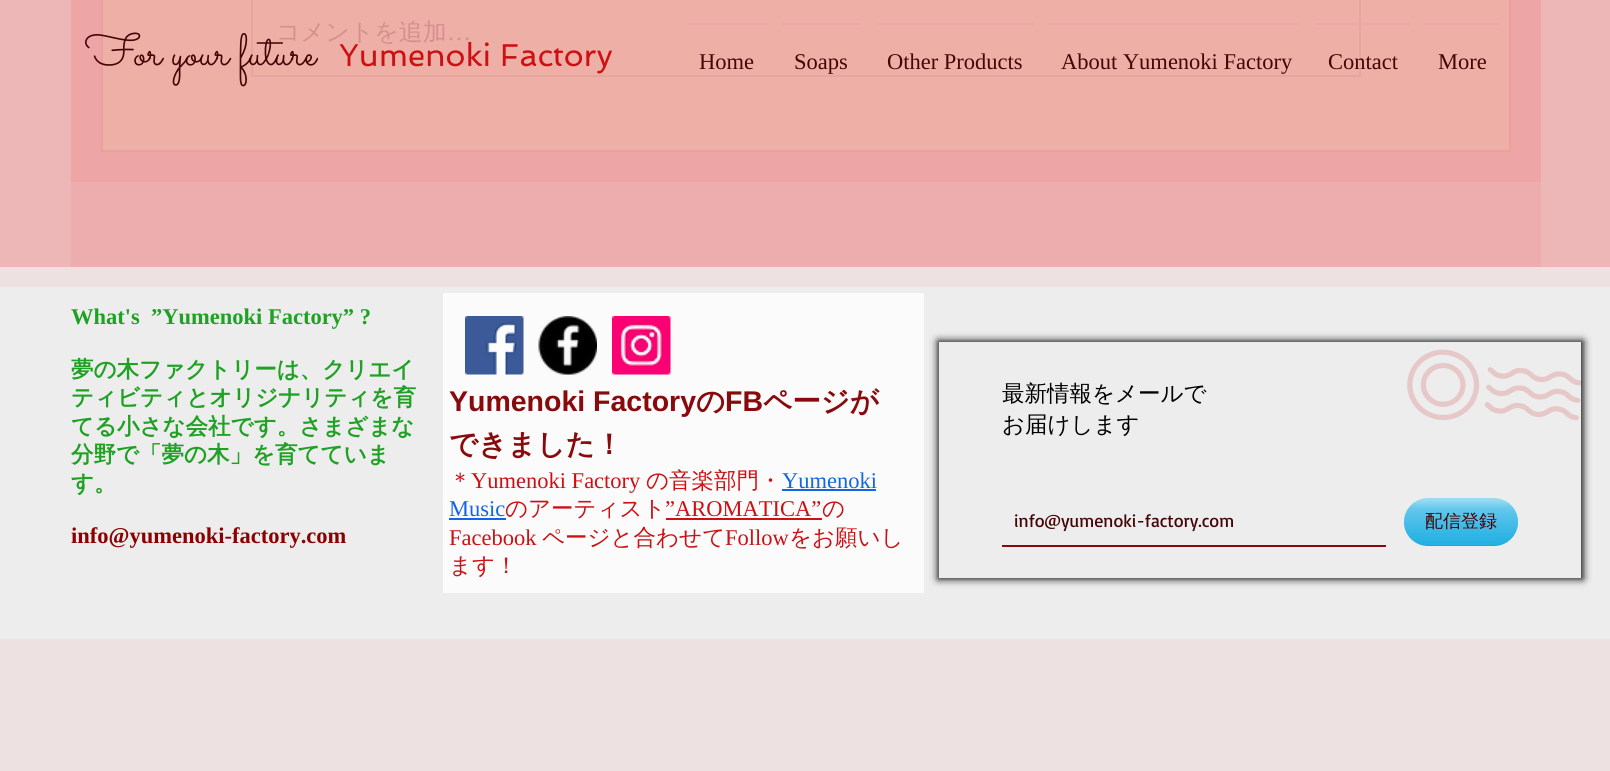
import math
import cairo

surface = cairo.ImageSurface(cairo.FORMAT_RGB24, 1610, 771)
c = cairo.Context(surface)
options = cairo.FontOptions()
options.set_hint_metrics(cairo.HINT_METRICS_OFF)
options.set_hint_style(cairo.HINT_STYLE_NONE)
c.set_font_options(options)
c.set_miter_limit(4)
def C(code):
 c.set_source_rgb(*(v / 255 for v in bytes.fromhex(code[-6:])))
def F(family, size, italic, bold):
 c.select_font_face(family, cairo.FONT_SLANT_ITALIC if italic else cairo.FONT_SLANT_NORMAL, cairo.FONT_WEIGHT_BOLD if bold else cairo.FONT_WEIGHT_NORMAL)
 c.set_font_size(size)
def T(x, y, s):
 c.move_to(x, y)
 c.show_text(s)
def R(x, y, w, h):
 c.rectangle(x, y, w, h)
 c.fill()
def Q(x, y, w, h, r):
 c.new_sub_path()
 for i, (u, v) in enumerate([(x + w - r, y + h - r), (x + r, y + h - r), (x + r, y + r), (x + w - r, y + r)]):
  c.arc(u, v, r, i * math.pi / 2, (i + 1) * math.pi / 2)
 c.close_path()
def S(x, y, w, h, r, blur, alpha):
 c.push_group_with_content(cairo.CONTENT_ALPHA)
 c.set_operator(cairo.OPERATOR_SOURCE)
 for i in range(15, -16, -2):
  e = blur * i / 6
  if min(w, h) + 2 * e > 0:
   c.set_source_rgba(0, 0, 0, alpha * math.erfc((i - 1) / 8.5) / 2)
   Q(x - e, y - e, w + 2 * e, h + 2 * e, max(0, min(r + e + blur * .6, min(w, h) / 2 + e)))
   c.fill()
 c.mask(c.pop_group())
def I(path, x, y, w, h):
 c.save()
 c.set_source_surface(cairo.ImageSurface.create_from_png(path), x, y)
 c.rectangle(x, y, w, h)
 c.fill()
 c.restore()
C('ede1e1')
c.paint()
C('edb6b7')
R(0,0,1610,267)
C('edadae')
R(71,182,1470,85)
C('eda5a6')
R(71,0,1470,182)
C('eeafa6')
c.rectangle(102,-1,1408,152)
c.fill_preserve()
C('eb9fa0')
c.stroke()
c.rectangle(252,-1,1108,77)
C('e7a59f')
c.stroke()
F('WenQuanYi Zen Hei Medium',24,0,0)
C('d68f90')
T(276,40,'コメントを追加')
F('Liberation Serif',24,0,0)
T(447,40,'…')
F('Sacramento',45,0,0)
C('440506')
T(85,65,'For your future')
F('Spinnaker',31.5,0,0)
C('cc1013')
T(339,66,'Yumenoki Factory')
C('eda7a6')
R(687,23,80,2)
F('Liberation Serif',22.5,0,0)
C('440506')
T(699,69,'Home')
C('eda7a6')
R(782,23,78,2)
C('440506')
T(794,69,'Soaps')
C('eda7a6')
R(875,23,159,2)
C('440506')
T(887,69,'Other Products')
C('eda7a6')
R(1049,23,252,2)
C('440506')
T(1061,69,'About Yumenoki Factory')
c.set_source_rgba(0.929,0.647,0.651,0.8)
R(1316,23,94,2)
C('440506')
T(1328,69,'Contact')
C('eda7a6')
R(1425,23,74,2)
C('440506')
T(1438,69,'More')
C('ededed')
R(0,287,1610,352)
C('fbfbfb')
R(443,293,481,300)
F('Liberation Serif',22.5,0,1)
C('1fa123')
T(71,324,'What\'s  ”Yumenoki Factory” ?')
F('WenQuanYi Zen Hei',22.5,0,1)
T(71,377,'夢の木ファクトリーは、クリエイ')
T(71,405,'ティビティとオリジナリティを育')
T(71,434,'てる小さな会社です。さまざまな')
T(71,462,'分野で「夢の木」を育てていま')
T(71,491,'す。')
F('Liberation Serif',22.5,0,1)
C('8b0000')
T(71,543,'info@yumenoki-factory.com')
I('1.png',465,316,59,59)
I('2.png',538,316,59,59)
I('3.png',612,316,59,59)
F('Liberation Sans',28.5,0,1)
C('880a0c')
T(449,411,'Yumenoki Factory')
F('WenQuanYi Zen Hei',28.5,0,1)
T(696,411,'の')
F('Liberation Sans',28.5,0,1)
T(725,411,'FB')
F('WenQuanYi Zen Hei',28.5,0,1)
T(763,411,'ページが')
T(449,454,'できました！')
F('WenQuanYi Zen Hei Medium',22.5,0,0)
C('cc1013')
T(449,488,'＊')
F('Liberation Serif',22.5,0,0)
T(471,488,'Yumenoki Factory')
F('WenQuanYi Zen Hei Medium',22.5,0,0)
T(646,488,'の音楽部門・')
F('Liberation Serif',22.5,0,0)
C('1266e6')
T(782,488,'Yumenoki')
R(782,489,94,2)
T(449,516,'Music')
R(449,518,57,2)
F('WenQuanYi Zen Hei Medium',22.5,0,0)
C('cc1013')
T(505,516,'のアーティスト')
F('Liberation Serif',22.5,0,0)
T(665,516,'”AROMATICA”')
F('WenQuanYi Zen Hei Medium',22.5,0,0)
T(822,516,'の')
R(666,518,156,2)
F('Liberation Serif',22.5,0,0)
T(449,545,'Facebook')
F('WenQuanYi Zen Hei Medium',22.5,0,0)
T(542,545,'ページと合わせて')
F('Liberation Serif',22.5,0,0)
T(725,545,'Follow')
F('WenQuanYi Zen Hei Medium',22.5,0,0)
T(789,545,'をお願いし')
T(449,573,'ます！')
c.save()
c.set_fill_rule(cairo.FILL_RULE_EVEN_ODD)
c.new_path()
c.move_to(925,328)
c.line_to(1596,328)
c.line_to(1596,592)
c.line_to(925,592)
c.close_path()
c.move_to(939,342)
c.line_to(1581,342)
c.line_to(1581,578)
c.line_to(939,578)
c.close_path()
c.clip()
C('000000')
S(938,341,645,238,0,4,1)
c.restore()
C('000000')
T(1002,401,'最新情報をメールで')
T(1002,432,'お届けします')
I('4.png',1407,349,175,72)
C('880a0c')
R(1002,545,384,2)
F('Basic',18,0,0)
C('440506')
T(1014,527,'info@yumenoki-factory.com')
C('0da8e0')
Q(1404,498,114,48,24)
c.fill()
I('5.png',1404,498,114,48)
F('WenQuanYi Zen Hei Medium',18,0,0)
C('440506')
T(1425,527,'配信登録')
surface.write_to_png('o.png')
